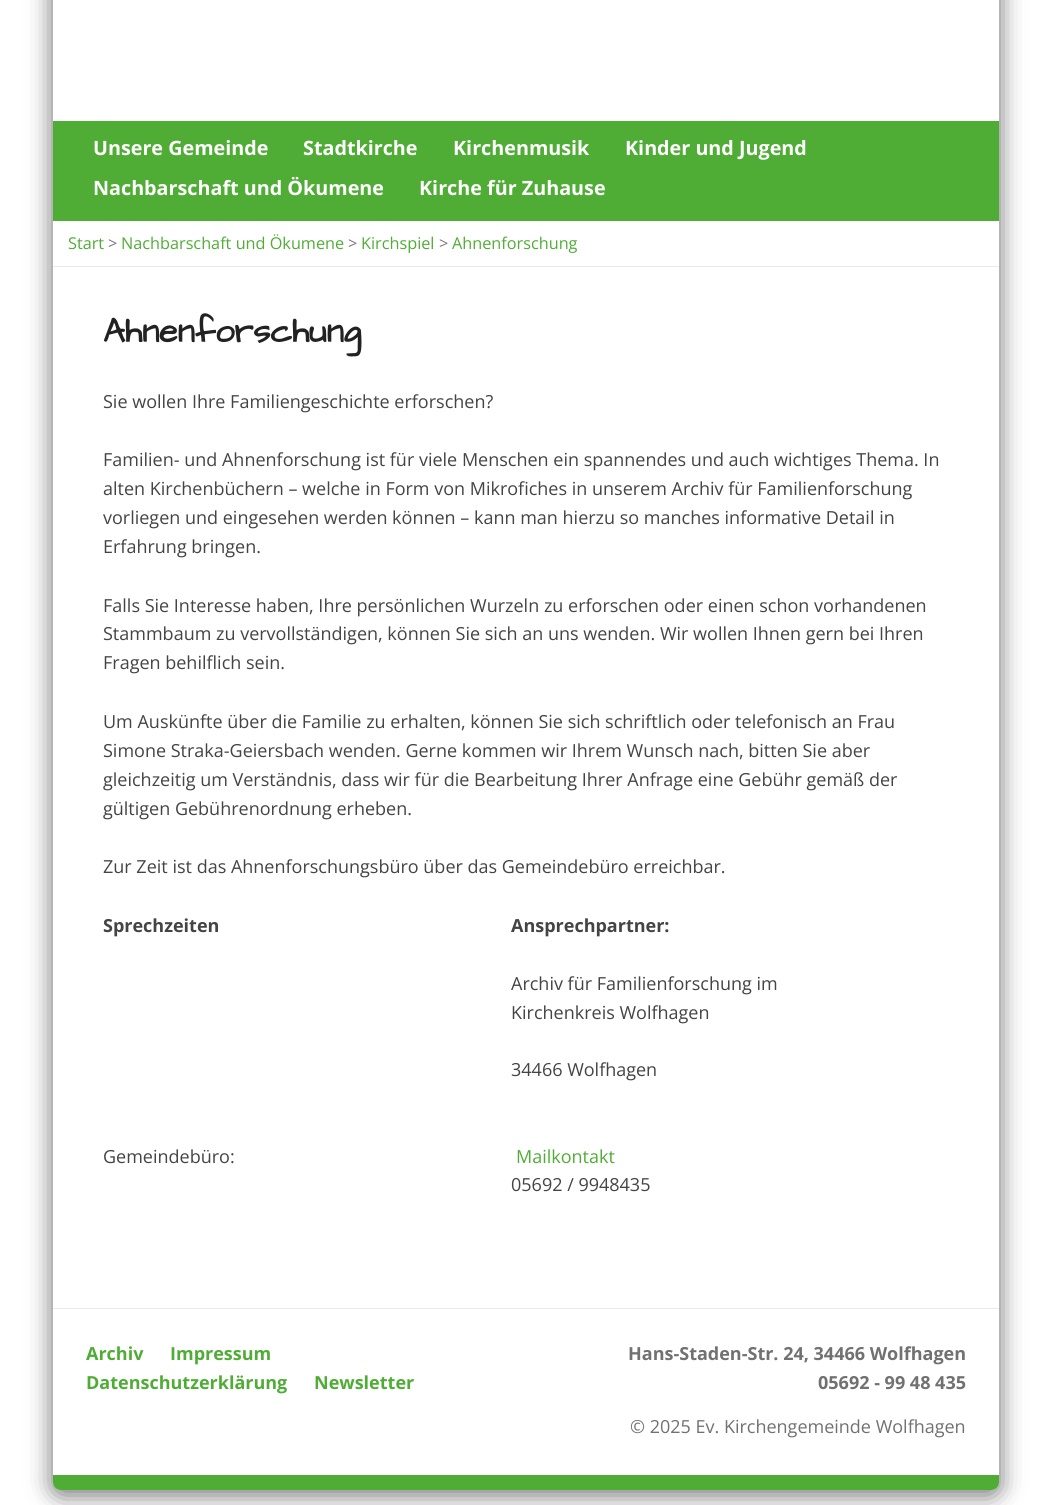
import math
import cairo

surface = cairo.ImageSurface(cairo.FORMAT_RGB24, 1051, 1505)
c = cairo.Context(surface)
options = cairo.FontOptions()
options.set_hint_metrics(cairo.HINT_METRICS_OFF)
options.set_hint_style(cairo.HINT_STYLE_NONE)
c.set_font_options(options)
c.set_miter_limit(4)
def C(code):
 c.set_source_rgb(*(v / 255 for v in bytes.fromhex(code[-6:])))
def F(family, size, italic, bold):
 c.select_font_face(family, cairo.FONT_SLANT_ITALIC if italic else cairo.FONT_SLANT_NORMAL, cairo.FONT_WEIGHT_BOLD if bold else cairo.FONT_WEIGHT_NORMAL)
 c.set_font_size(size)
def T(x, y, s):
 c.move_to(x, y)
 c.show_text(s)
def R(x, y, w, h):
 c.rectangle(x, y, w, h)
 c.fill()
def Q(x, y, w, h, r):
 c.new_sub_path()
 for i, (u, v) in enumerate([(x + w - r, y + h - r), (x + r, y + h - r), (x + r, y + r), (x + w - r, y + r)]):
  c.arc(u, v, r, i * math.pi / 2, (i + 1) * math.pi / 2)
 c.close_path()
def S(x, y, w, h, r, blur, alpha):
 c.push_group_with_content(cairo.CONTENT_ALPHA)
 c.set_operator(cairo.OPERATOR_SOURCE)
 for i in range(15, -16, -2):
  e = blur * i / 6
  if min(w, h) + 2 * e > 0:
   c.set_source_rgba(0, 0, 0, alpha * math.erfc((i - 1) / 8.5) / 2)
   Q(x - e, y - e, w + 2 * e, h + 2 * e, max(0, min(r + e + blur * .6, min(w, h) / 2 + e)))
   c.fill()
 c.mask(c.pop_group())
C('ffffff')
c.paint()
C('000000')
S(53,-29,946,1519,8,12.5,.12)
S(53,-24,946,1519,8,12.5,.5)
C('ffffff')
Q(53,-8,946,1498,8)
c.fill()
C('4fad35')
R(53,121,946,100)
F('Open Sans',19.75,0,1)
C('ffffff')
T(93,155,'Unsere Gemeinde')
T(303,155,'Stadtkirche')
T(453,155,'Kirchenmusik')
T(625,155,'Kinder und Jugend')
T(93,195,'Nachbarschaft und Ökumene')
T(419,195,'Kirche für Zuhause')
C('eaeaea')
R(53,266,946,1)
F('Open Sans',16.25,0,0)
C('4fad35')
T(68,249,'Start')
C('777777')
T(108,249,'>')
C('4fad35')
T(121,249,'Nachbarschaft und Ökumene')
C('777777')
T(348,249,'>')
C('4fad35')
T(361,249,'Kirchspiel')
C('777777')
T(439,249,'>')
C('4fad35')
T(452,249,'Ahnenforschung')
F('Architects Daughter',34.25,0,1)
C('222222')
T(103,342,'Ahnenforschung')
F('Open Sans',18,0,0)
C('444444')
T(103,408,'Sie wollen Ihre Familiengeschichte erforschen?')
T(103,466,'Familien- und Ahnenforschung ist für viele Menschen ein spannendes und auch wichtiges Thema. In')
T(103,495,'alten Kirchenbüchern – welche in Form von Mikrofiches in unserem Archiv für Familienforschung')
T(103,524,'vorliegen und eingesehen werden können – kann man hierzu so manches informative Detail in')
T(103,553,'Erfahrung bringen.')
T(103,612,'Falls Sie Interesse haben, Ihre persönlichen Wurzeln zu erforschen oder einen schon vorhandenen')
T(103,640,'Stammbaum zu vervollständigen, können Sie sich an uns wenden. Wir wollen Ihnen gern bei Ihren')
T(103,669,'Fragen behilflich sein.')
T(103,728,'Um Auskünfte über die Familie zu erhalten, können Sie sich schriftlich oder telefonisch an Frau')
T(103,757,'Simone Straka-Geiersbach wenden. Gerne kommen wir Ihrem Wunsch nach, bitten Sie aber')
T(103,786,'gleichzeitig um Verständnis, dass wir für die Bearbeitung Ihrer Anfrage eine Gebühr gemäß der')
T(103,815,'gültigen Gebührenordnung erheben.')
T(103,873,'Zur Zeit ist das Ahnenforschungsbüro über das Gemeindebüro erreichbar.')
F('Open Sans',18,0,1)
T(103,932,'Sprechzeiten')
T(511,932,'Ansprechpartner:')
F('Open Sans',18,0,0)
T(511,990,'Archiv für Familienforschung im')
T(511,1019,'Kirchenkreis Wolfhagen')
T(511,1076,'34466 Wolfhagen')
T(103,1163,'Gemeindebüro:')
C('4fad35')
T(516,1163,'Mailkontakt')
C('444444')
T(511,1191,'05692 / 9948435')
C('eaeaea')
R(53,1308,946,1)
F('Open Sans',18,0,1)
C('4fad35')
T(86,1360,'Archiv')
T(170,1360,'Impressum')
T(86,1389,'Datenschutzerklärung')
T(314,1389,'Newsletter')
C('717171')
T(628,1360,'Hans-Staden-Str. 24, 34466 Wolfhagen')
T(818,1389,'05692 - 99 48 435')
F('Open Sans',18,0,0)
T(630,1433,'© 2025 Ev. Kirchengemeinde Wolfhagen')
C('4fad35')
c.new_path()
c.move_to(53,1475)
c.line_to(999,1475)
c.line_to(999,1482.5)
c.curve_to(999,1486.5,995.5,1490,991.5,1490)
c.line_to(60.5,1490)
c.curve_to(56.5,1490,53,1486.5,53,1482.5)
c.close_path()
c.fill()
surface.write_to_png('o.png')
